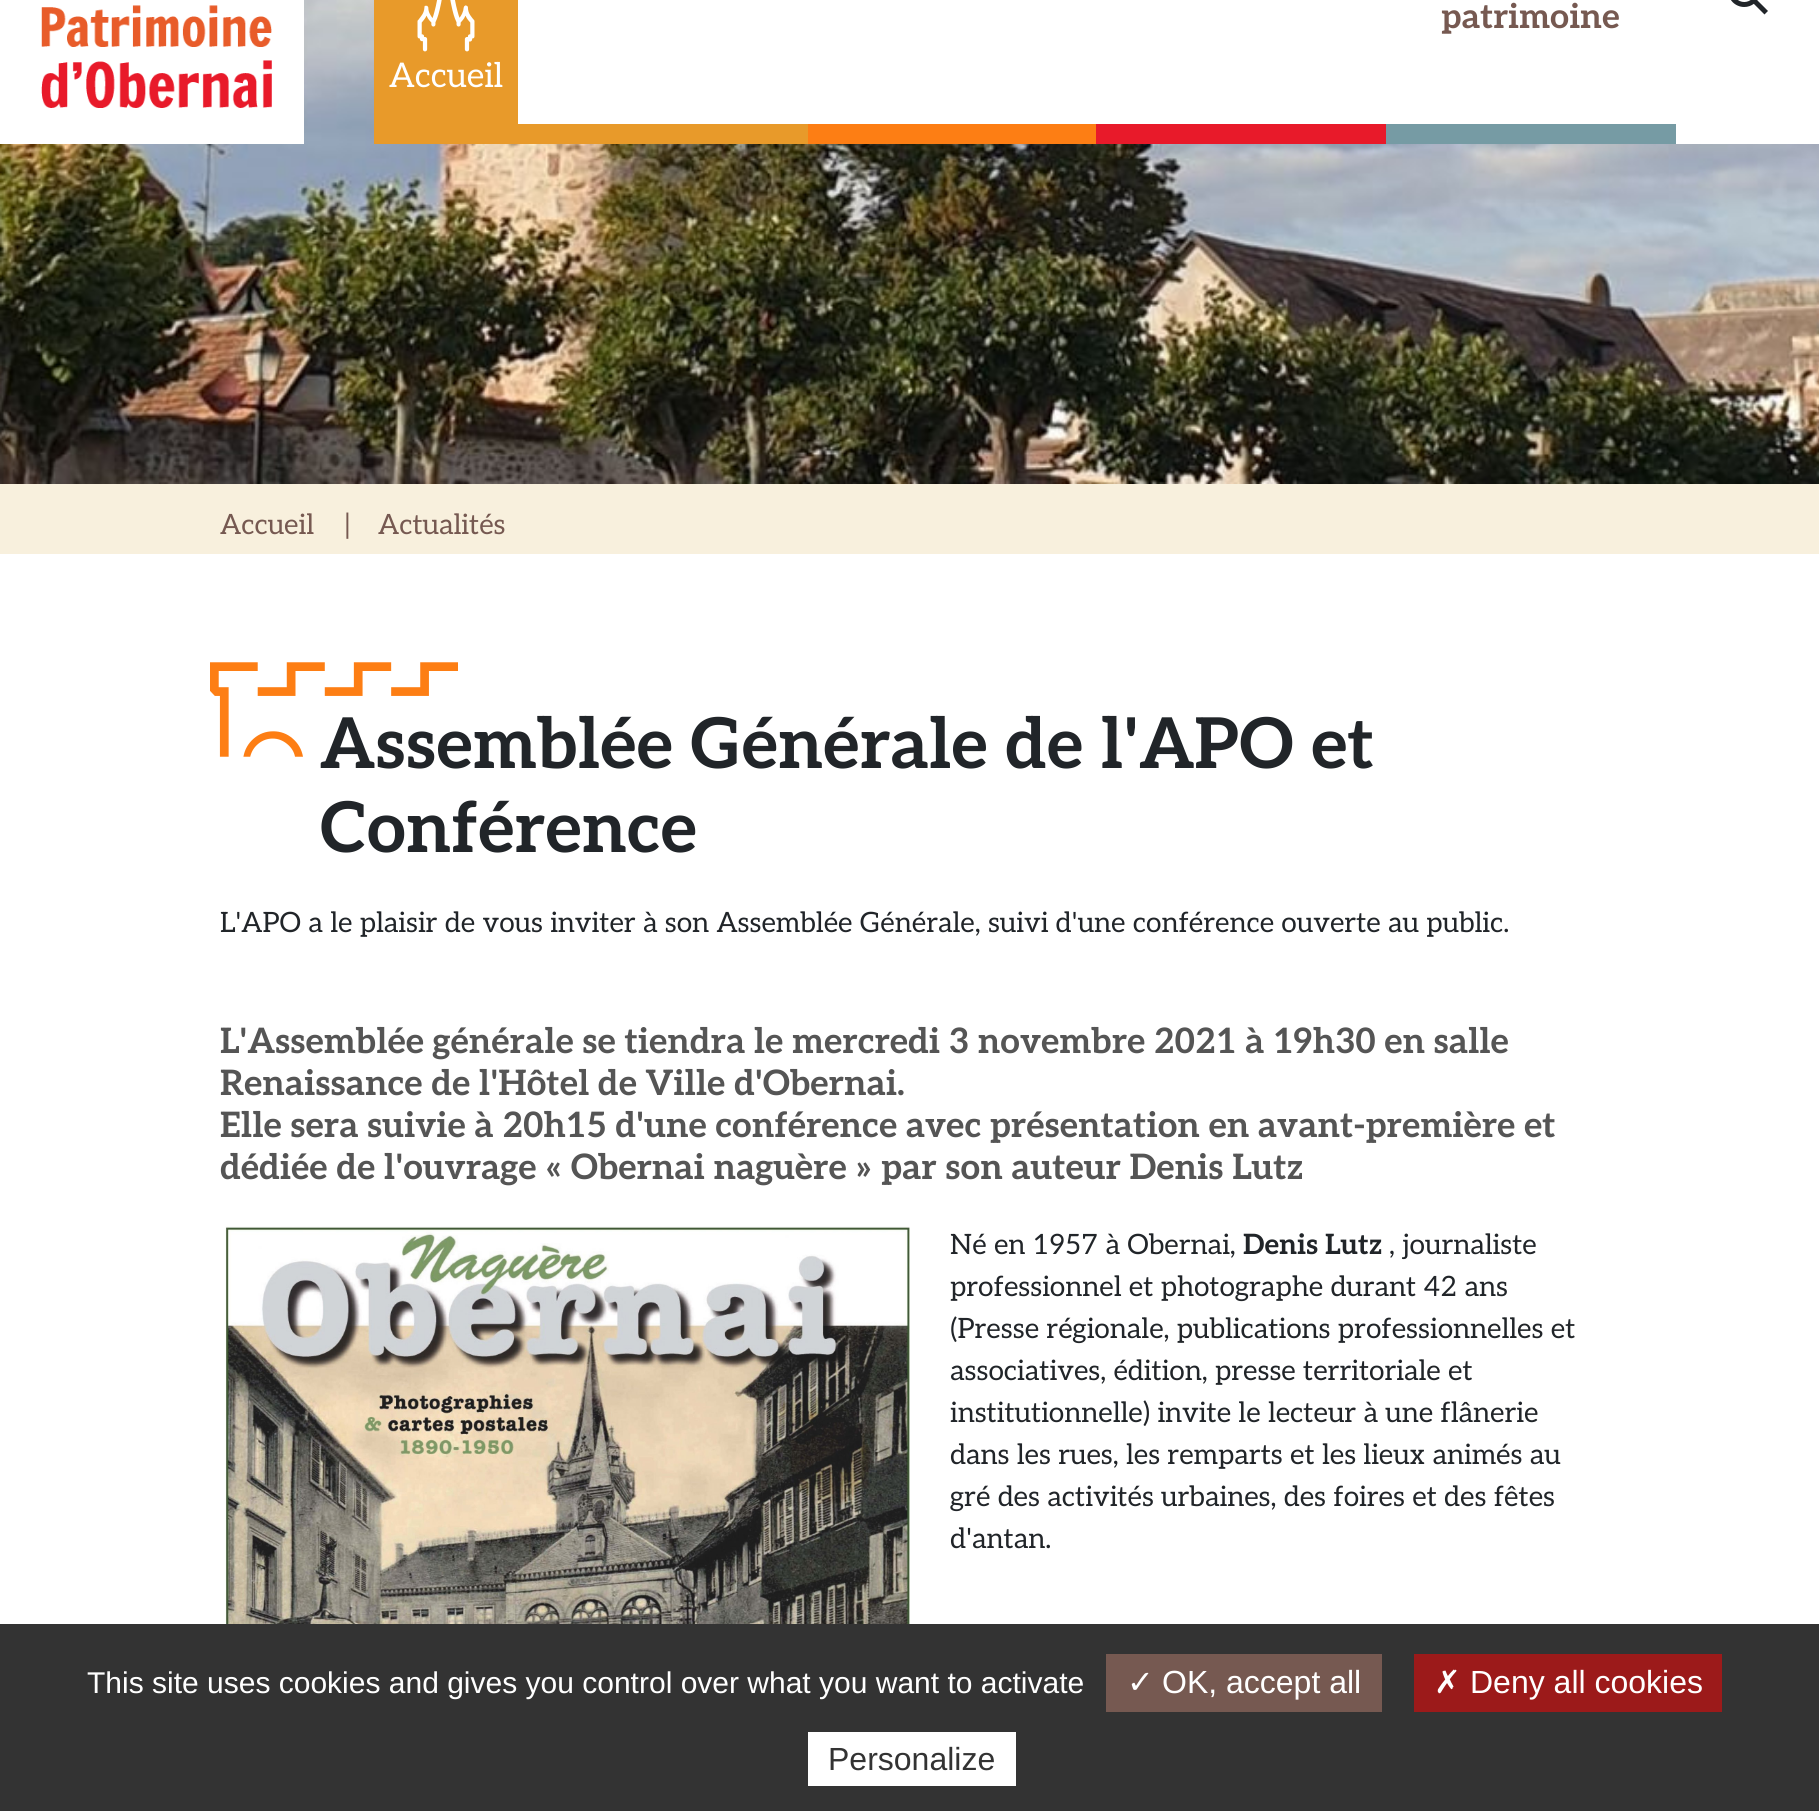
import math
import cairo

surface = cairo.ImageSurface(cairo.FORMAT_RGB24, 1819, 1811)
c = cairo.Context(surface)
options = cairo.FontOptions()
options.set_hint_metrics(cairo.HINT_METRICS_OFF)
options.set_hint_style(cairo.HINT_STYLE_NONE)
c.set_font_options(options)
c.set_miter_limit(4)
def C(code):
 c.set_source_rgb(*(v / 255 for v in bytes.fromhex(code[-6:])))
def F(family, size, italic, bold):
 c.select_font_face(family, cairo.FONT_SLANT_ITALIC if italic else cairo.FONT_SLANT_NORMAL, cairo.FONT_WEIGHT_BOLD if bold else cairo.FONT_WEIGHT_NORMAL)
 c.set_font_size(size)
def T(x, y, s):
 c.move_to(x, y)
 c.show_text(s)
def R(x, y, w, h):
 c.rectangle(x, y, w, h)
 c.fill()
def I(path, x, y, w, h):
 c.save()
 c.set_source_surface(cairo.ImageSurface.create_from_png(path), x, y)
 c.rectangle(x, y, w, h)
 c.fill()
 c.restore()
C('ffffff')
c.paint()
I('1.png',0,0,1819,484)
C('ffffff')
R(0,0,304,144)
I('2.png',41,5,231,103)
R(518,0,1301,124)
F('Aleo',34,0,1)
C('765951')
T(1441,28,'patrimoine')
I('3.png',1731,0,37,15)
C('e89a2a')
R(374,0,144,144)
I('4.png',417,0,58,52)
F('Aleo',34,0,0)
C('ffffff')
T(389,87,'Accueil')
C('e89a2a')
R(518,124,290,20)
C('fd7e14')
R(808,124,288,20)
C('e81a2a')
R(1096,124,290,20)
C('769ba4')
R(1386,124,290,20)
C('ffffff')
R(1676,124,143,20)
C('f8f0dd')
R(0,484,1819,70)
F('Aleo',28,0,0)
C('765951')
T(220,534,'Accueil')
T(344,534,'|')
T(378,534,'Actualités')
F('Aleo',70,0,1)
C('212529')
T(320,768,'Assemblée Générale de l\'APO et')
I('5.png',210,662,248,95)
T(320,852,'Conférence')
F('Aleo',28,0,0)
T(220,932,'L\'APO a le plaisir de vous inviter à son Assemblée Générale, suivi d\'une conférence ouverte au public.')
F('Aleo',35,0,1)
C('555555')
T(220,1053,'L\'Assemblée générale se tiendra le mercredi 3 novembre 2021 à 19h30 en salle')
T(220,1095,'Renaissance de l\'Hôtel de Ville d\'Obernai.')
T(220,1137,'Elle sera suivie à 20h15 d\'une conférence avec présentation en avant-première et')
T(220,1179,'dédiée de l\'ouvrage « Obernai naguère » par son auteur Denis Lutz')
I('6.png',225,1226,685,398)
F('Aleo',28,0,0)
C('212529')
T(950,1254,'Né en 1957 à Obernai,')
F('Aleo',28,0,1)
T(1243,1254,'Denis Lutz')
F('Aleo',28,0,0)
T(1389,1254,', journaliste')
T(950,1296,'professionnel et photographe durant 42 ans')
T(950,1338,'(Presse régionale, publications professionnelles et')
T(950,1380,'associatives, édition, presse territoriale et')
T(950,1422,'institutionnelle) invite le lecteur à une flânerie')
T(950,1464,'dans les rues, les remparts et les lieux animés au')
T(950,1506,'gré des activités urbaines, des foires et des fêtes')
T(950,1548,'d\'antan.')
C('333333')
R(0,1624,1819,187)
F('Liberation Sans',30,0,0)
C('ffffff')
T(87,1693,'This site uses cookies and gives you control over what you want to activate')
C('765951')
R(1106,1654,276,58)
F('DejaVu Sans',32,0,0)
C('ffffff')
T(1127,1693,'✓')
F('Liberation Sans',32,0,0)
T(1162,1693,'OK, accept all')
C('9c1a1a')
R(1414,1654,308,58)
F('DejaVu Sans',32,0,0)
C('ffffff')
T(1434,1693,'✗')
F('Liberation Sans',32,0,0)
T(1470,1693,'Deny all cookies')
R(808,1732,208,54)
C('333333')
T(828,1770,'Personalize')
surface.write_to_png('o.png')
